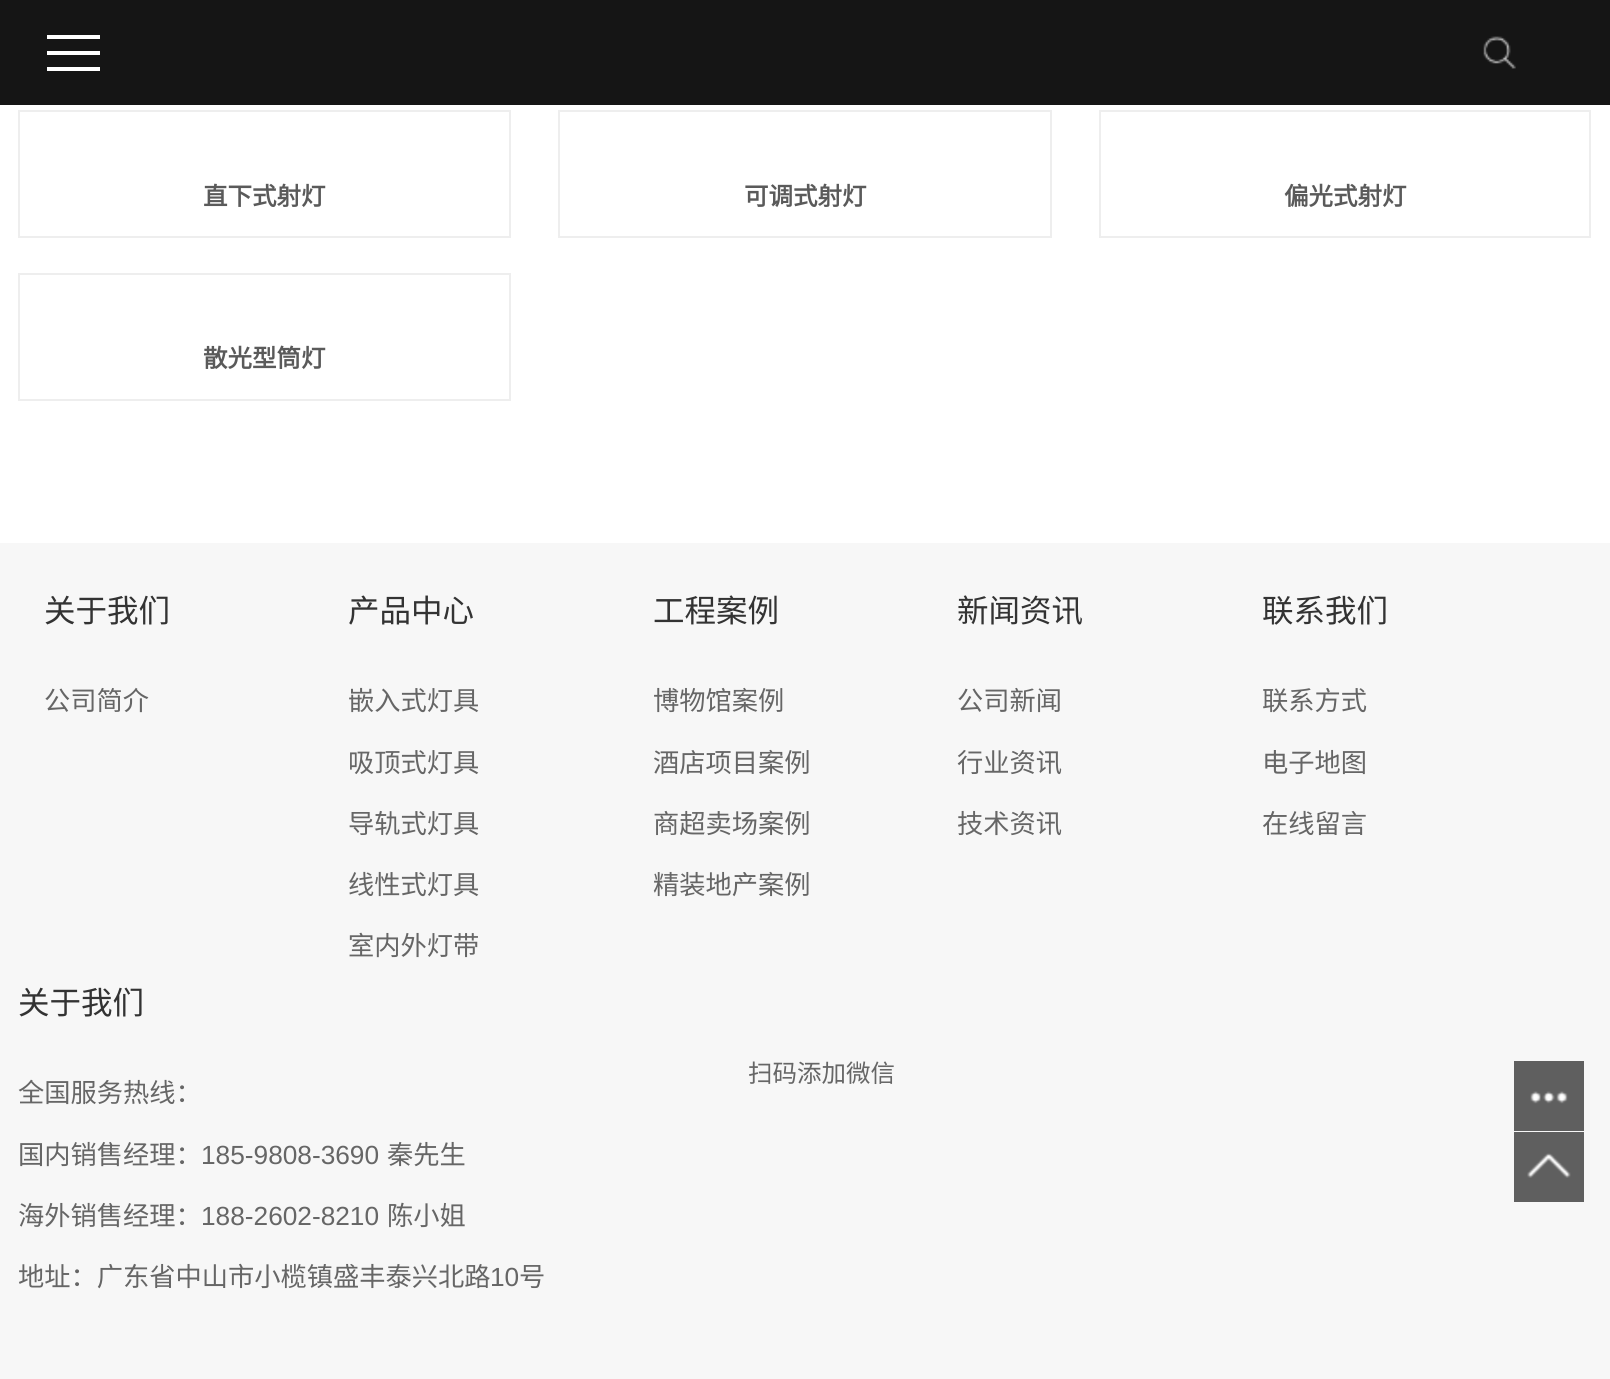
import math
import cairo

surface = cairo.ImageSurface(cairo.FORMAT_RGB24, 1610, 1379)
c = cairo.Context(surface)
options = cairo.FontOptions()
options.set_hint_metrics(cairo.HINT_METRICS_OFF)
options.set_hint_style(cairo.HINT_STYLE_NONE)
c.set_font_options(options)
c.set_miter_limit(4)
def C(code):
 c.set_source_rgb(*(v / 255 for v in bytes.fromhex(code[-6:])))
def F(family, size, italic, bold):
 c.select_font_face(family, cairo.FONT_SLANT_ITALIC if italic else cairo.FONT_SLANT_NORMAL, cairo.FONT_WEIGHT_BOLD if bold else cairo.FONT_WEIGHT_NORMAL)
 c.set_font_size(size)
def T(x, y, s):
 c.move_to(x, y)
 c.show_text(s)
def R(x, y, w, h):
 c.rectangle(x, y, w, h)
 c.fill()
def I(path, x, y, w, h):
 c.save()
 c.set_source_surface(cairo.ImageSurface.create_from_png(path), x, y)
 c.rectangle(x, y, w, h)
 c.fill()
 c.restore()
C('ffffff')
c.paint()
C('151515')
R(0,0,1610,105)
C('ffffff')
R(47,35,53,4)
R(47,51,53,4)
R(47,67,53,4)
I('1.png',1483,36,33,33)
c.rectangle(19,111,491,126)
C('eeeeee')
c.stroke()
F('Noto Sans CJK SC',24.5,0,1)
C('5a5a5a')
T(203,205,'直下式射灯')
c.rectangle(559,111,492,126)
C('eeeeee')
c.stroke()
C('5a5a5a')
T(744,205,'可调式射灯')
c.rectangle(1100,111,490,126)
C('eeeeee')
c.stroke()
C('5a5a5a')
T(1284,205,'偏光式射灯')
c.rectangle(19,274,491,126)
C('eeeeee')
c.stroke()
C('5a5a5a')
T(203,367,'散光型筒灯')
C('f7f7f7')
R(0,543,1610,836)
C('5f5f5f')
R(1514,1061,70,70)
I('2.png',1530,1091,38,13)
R(1514,1132,70,70)
I('3.png',1527,1153,44,25)
F('Noto Sans CJK SC',31.5,0,0)
C('333333')
T(44,622,'关于我们')
F('Noto Sans CJK SC',26.25,0,0)
C('666666')
T(44,710,'公司简介')
F('Noto Sans CJK SC',31.5,0,0)
C('333333')
T(348,622,'产品中心')
F('Noto Sans CJK SC',26.25,0,0)
C('666666')
T(348,710,'嵌入式灯具')
T(348,772,'吸顶式灯具')
T(348,833,'导轨式灯具')
T(348,894,'线性式灯具')
T(348,955,'室内外灯带')
F('Noto Sans CJK SC',31.5,0,0)
C('333333')
T(653,622,'工程案例')
F('Noto Sans CJK SC',26.25,0,0)
C('666666')
T(653,710,'博物馆案例')
T(653,772,'酒店项目案例')
T(653,833,'商超卖场案例')
T(653,894,'精装地产案例')
F('Noto Sans CJK SC',31.5,0,0)
C('333333')
T(957,622,'新闻资讯')
F('Noto Sans CJK SC',26.25,0,0)
C('666666')
T(957,710,'公司新闻')
T(957,772,'行业资讯')
T(957,833,'技术资讯')
F('Noto Sans CJK SC',31.5,0,0)
C('333333')
T(1262,622,'联系我们')
F('Noto Sans CJK SC',26.25,0,0)
C('666666')
T(1262,710,'联系方式')
T(1262,772,'电子地图')
T(1262,833,'在线留言')
F('Noto Sans CJK SC',31.5,0,0)
C('333333')
T(18,1014,'关于我们')
F('Noto Sans CJK SC',26.25,0,0)
C('666666')
T(18,1102,'全国服务热线：')
T(18,1164,'国内销售经理：')
F('Liberation Sans',26.25,0,0)
T(201,1164,'185-9808-3690')
F('Noto Sans CJK SC',26.25,0,0)
T(387,1164,'秦先生')
T(18,1225,'海外销售经理：')
F('Liberation Sans',26.25,0,0)
T(201,1225,'188-2602-8210')
F('Noto Sans CJK SC',26.25,0,0)
T(387,1225,'陈小姐')
T(18,1286,'地址：广东省中山市小榄镇盛丰泰兴北路')
F('Liberation Sans',26.25,0,0)
T(490,1286,'10')
F('Noto Sans CJK SC',26.25,0,0)
T(519,1286,'号')
F('Noto Sans CJK SC',24.5,0,0)
T(748,1082,'扫码添加微信')
surface.write_to_png('o.png')
